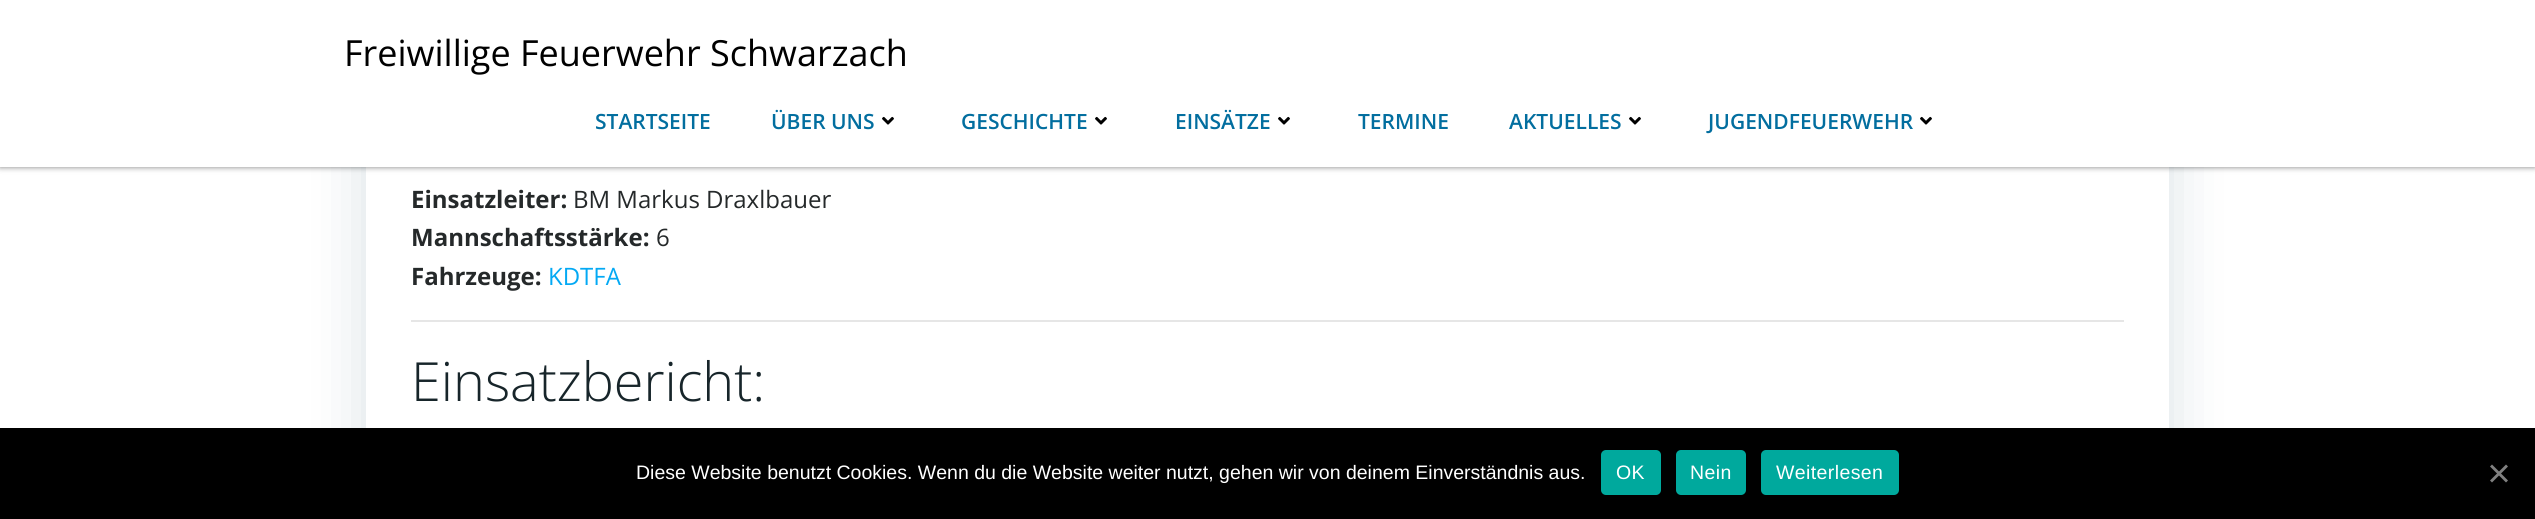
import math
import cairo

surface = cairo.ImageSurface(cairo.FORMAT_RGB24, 2535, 519)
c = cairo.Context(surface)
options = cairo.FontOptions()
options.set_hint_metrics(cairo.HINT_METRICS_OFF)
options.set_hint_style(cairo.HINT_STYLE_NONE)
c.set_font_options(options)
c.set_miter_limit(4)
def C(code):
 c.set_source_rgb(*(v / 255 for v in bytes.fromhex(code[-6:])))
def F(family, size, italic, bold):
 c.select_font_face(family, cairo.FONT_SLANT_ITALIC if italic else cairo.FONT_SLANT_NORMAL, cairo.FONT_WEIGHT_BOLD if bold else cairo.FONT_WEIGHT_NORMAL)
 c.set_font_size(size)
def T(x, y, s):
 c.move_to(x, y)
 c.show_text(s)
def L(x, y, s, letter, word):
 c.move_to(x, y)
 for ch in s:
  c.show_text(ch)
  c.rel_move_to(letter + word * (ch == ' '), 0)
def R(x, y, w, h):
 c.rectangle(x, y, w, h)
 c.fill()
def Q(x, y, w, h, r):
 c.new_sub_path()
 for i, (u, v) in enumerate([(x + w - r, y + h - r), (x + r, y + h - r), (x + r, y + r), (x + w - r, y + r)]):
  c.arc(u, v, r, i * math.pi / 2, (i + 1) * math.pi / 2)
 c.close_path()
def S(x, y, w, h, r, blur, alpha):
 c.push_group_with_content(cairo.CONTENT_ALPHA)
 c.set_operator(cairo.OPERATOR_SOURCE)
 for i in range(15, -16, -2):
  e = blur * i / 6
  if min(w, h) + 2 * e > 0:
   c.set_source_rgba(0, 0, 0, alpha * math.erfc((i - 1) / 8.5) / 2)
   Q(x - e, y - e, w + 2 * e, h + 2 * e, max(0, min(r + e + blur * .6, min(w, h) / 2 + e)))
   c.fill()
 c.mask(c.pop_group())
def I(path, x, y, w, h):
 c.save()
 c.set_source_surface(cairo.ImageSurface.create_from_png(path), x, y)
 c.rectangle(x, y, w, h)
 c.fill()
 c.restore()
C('ffffff')
c.paint()
C('000000')
S(0,0,2535,167,0,3,.5)
c.save()
c.set_fill_rule(cairo.FILL_RULE_EVEN_ODD)
c.new_path()
c.move_to(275,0)
c.line_to(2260,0)
c.line_to(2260,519)
c.line_to(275,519)
c.close_path()
c.move_to(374,-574)
c.line_to(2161,-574)
c.curve_to(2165.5,-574,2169,-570.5,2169,-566)
c.line_to(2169,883)
c.curve_to(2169,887.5,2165.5,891,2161,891)
c.line_to(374,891)
c.curve_to(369.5,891,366,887.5,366,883)
c.line_to(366,-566)
c.curve_to(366,-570.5,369.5,-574,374,-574)
c.close_path()
c.clip()
C('01334a')
S(366,-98,1803,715,8,30,.15)
c.restore()
C('ffffff')
R(0,0,2535,167)
F('Open Sans',36,0,0)
C('000000')
T(344,66,'Freiwillige Feuerwehr Schwarzach')
F('Open Sans SemiBold',21,0,0)
C('026e9f')
T(595,129,'STARTSEITE')
T(771,129,'ÜBER UNS')
I('1.png',882,116,12,9)
T(961,129,'GESCHICHTE')
I('1.png',1095,116,12,9)
T(1175,129,'EINSÄTZE')
I('1.png',1278,116,12,9)
T(1358,129,'TERMINE')
T(1509,129,'AKTUELLES')
I('1.png',1629,116,12,9)
T(1708,129,'JUGENDFEUERWEHR')
I('1.png',1920,116,12,9)
F('Open Sans',24,0,1)
C('25292a')
T(411,208,'Einsatzleiter:')
F('Open Sans',24,0,0)
T(573,208,'BM Markus Draxlbauer')
F('Open Sans',24,0,1)
T(411,246,'Mannschaftsstärke:')
F('Open Sans',24,0,0)
T(656,246,'6')
F('Open Sans',24,0,1)
T(411,285,'Fahrzeuge:')
F('Open Sans',24,0,0)
C('03a9f4')
T(548,285,'KDTFA')
C('e6e6e6')
R(411,320,1713,2)
F('Open Sans Light',54,0,0)
C('17252a')
T(411,401,'Einsatzbericht:')
C('000000')
R(0,428,2535,91)
F('Liberation Sans',19.5,0,0)
C('ffffff')
T(636,479,'Diese Website benutzt Cookies. Wenn du die Website weiter nutzt, gehen wir von deinem Einverständnis aus.')
C('00a99d')
Q(1601,450,60,45,5)
c.fill()
C('ffffff')
L(1616,479,'OK',.4,0)
C('00a99d')
Q(1676,450,70,45,5)
c.fill()
C('ffffff')
L(1690,479,'Nein',.4,0)
C('00a99d')
Q(1761,450,138,45,5)
c.fill()
C('ffffff')
L(1776,479,'Weiterlesen',.4,0)
C('808080')
c.new_path()
c.move_to(2506,464.5)
c.line_to(2508,466.5)
c.line_to(2492,482.5)
c.line_to(2490,480.5)
c.close_path()
c.fill()
c.new_path()
c.move_to(2490,466.5)
c.line_to(2492,464.5)
c.line_to(2508,480.5)
c.line_to(2506,482.5)
c.close_path()
c.fill()
surface.write_to_png('o.png')
